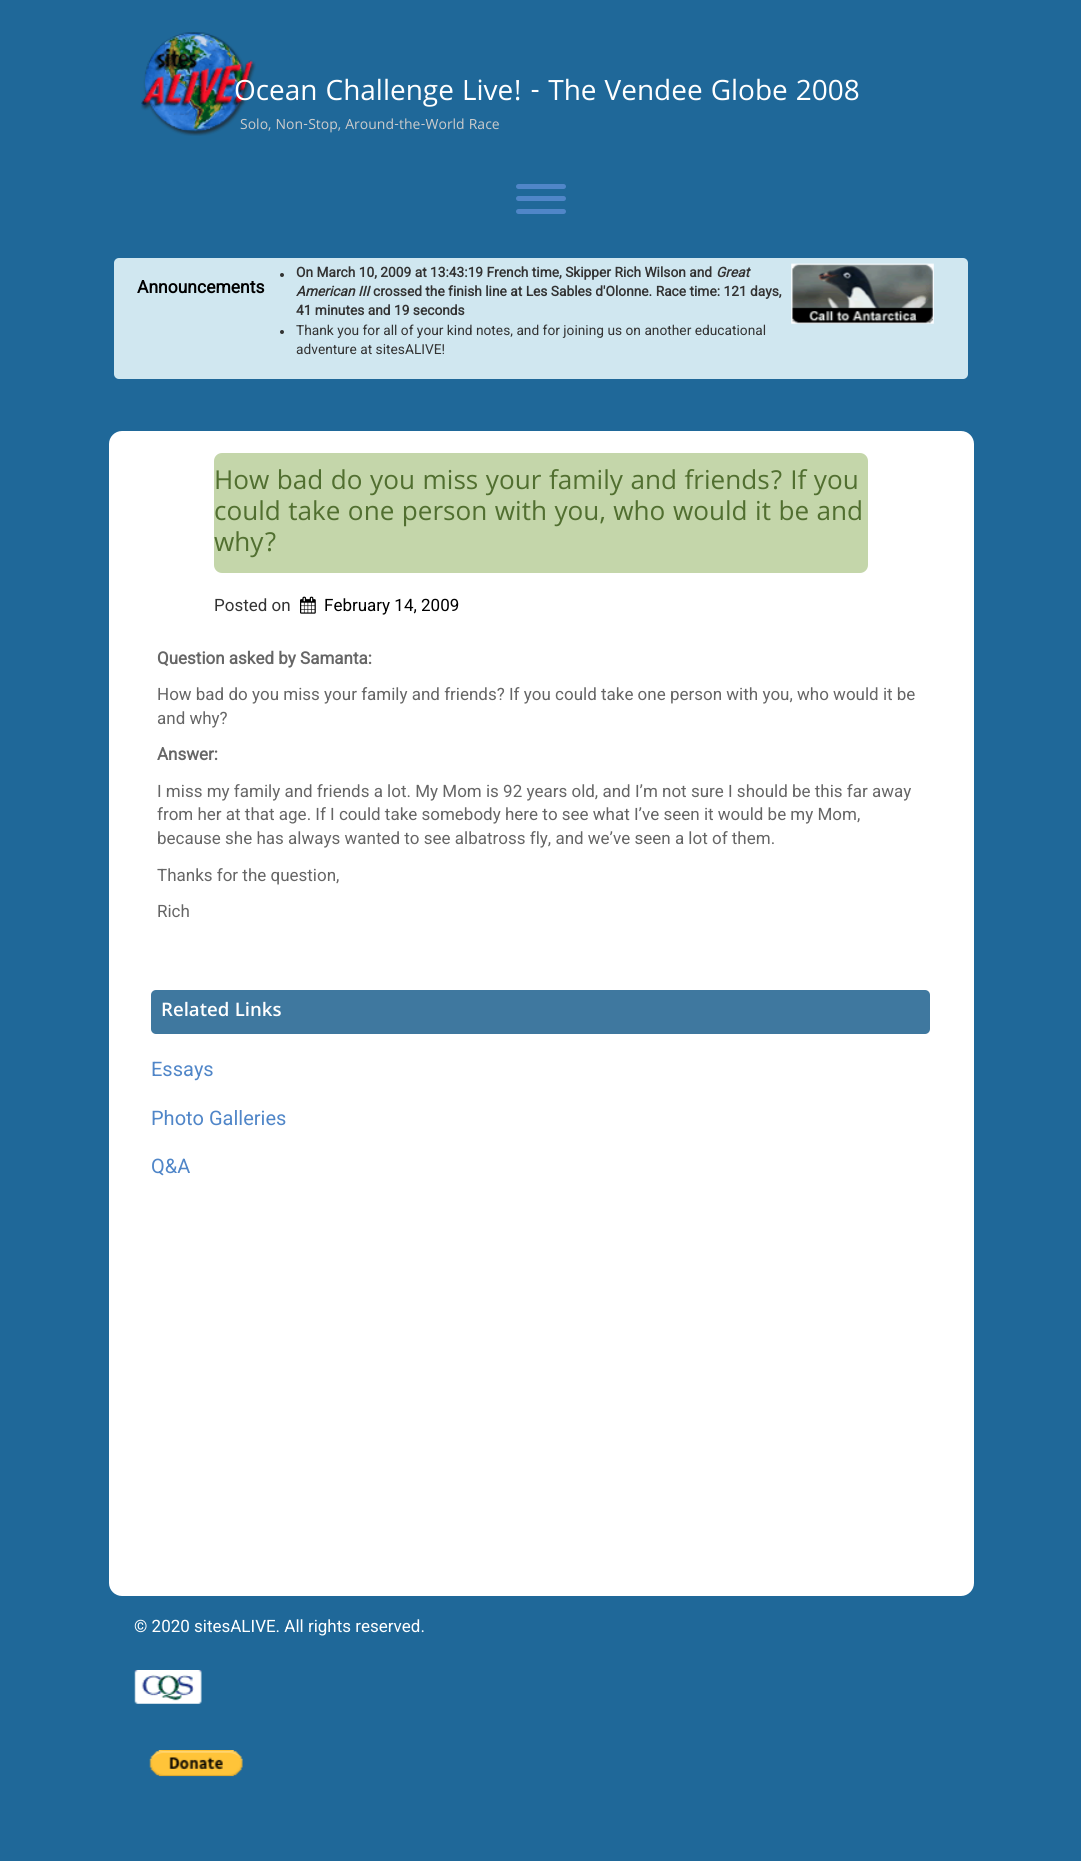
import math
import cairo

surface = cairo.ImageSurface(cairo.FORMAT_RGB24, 1081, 1861)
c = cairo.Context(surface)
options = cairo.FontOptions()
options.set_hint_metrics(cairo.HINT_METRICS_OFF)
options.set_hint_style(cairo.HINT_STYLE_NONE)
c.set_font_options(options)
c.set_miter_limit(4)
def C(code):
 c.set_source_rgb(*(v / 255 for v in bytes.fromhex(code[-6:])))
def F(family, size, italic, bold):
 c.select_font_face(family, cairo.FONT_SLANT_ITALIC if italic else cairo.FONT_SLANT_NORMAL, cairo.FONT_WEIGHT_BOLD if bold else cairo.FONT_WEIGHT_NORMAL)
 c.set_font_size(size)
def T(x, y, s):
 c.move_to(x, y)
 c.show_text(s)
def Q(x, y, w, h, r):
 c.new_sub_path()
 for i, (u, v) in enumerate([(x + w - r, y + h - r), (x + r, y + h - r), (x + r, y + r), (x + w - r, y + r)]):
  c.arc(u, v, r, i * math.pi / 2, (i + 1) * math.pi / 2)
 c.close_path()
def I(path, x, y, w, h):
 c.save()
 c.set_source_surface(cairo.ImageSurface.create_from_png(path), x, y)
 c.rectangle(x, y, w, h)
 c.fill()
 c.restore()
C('1f6899')
c.paint()
I('1.png',141,32,115,104)
F('Khula',30,0,0)
C('ffffff')
T(234,100,'Ocean Challenge Live! - The Vendee Globe 2008')
F('Khula',15,0,0)
C('cccccc')
T(240,129,'Solo, Non-Stop, Around-the-World Race')
C('5086c8')
Q(516,209,50,5,2.5)
c.fill()
Q(516,184,50,5,2.5)
c.fill()
Q(516,196,50,5,2.5)
c.fill()
C('d0e7f0')
Q(114,258,854,121,5)
c.fill()
F('Roboto',17.5,0,1)
C('000000')
T(137,293,'Announcements')
C('333333')
c.new_path()
c.arc(282,275,2,0,2 * math.pi)
c.fill()
F('Roboto',13.75,0,1)
T(296,277,'On March 10, 2009 at 13:43:19 French time, Skipper Rich Wilson and')
F('Roboto',13.75,1,1)
T(716,277,'Great')
I('2.png',791,263,143,61)
T(296,296,'American III')
F('Roboto',13.75,0,1)
T(373,296,'crossed the finish line at Les Sables d\'Olonne. Race time: 121 days,')
T(296,315,'41 minutes and 19 seconds')
c.new_path()
c.arc(282,332,2,0,2 * math.pi)
c.fill()
F('Roboto',13.75,0,0)
T(296,335,'Thank you for all of your kind notes, and for joining us on another educational')
T(296,354,'adventure at sitesALIVE!')
C('ffffff')
Q(109,431,865,1165,13)
c.fill()
C('c4d6aa')
Q(214,453,654,120,8)
c.fill()
F('Khula',28,0,0)
C('516f30')
T(214,489,'How bad do you miss your family and friends? If you')
T(214,520,'could take one person with you, who would it be and')
T(214,551,'why?')
F('Roboto',17,0,0)
C('333333')
T(214,611,'Posted on')
I('3.png',300,596,16,18)
C('000000')
T(324,611,'February 14, 2009')
F('Roboto',17,0,1)
C('666666')
T(157,664,'Question asked by Samanta:')
F('Roboto',17,0,0)
T(157,700,'How bad do you miss your family and friends? If you could take one person with you, who would it be')
T(157,724,'and why?')
F('Roboto',17,0,1)
T(157,760,'Answer:')
F('Roboto',17,0,0)
T(157,797,'I miss my family and friends a lot. My Mom is 92 years old, and I’m not sure I should be this far away')
T(157,820,'from her at that age. If I could take somebody here to see what I’ve seen it would be my Mom,')
T(157,844,'because she has always wanted to see albatross fly, and we’ve seen a lot of them.')
T(157,881,'Thanks for the question,')
T(157,917,'Rich')
C('3f789f')
Q(151,990,779,44,5)
c.fill()
F('Khula SemiBold',20,0,0)
C('ffffff')
T(161,1016,'Related Links')
F('Roboto',20,0,0)
C('5086c8')
T(151,1076,'Essays')
T(151,1125,'Photo Galleries')
T(151,1173,'Q&A')
F('Roboto',17,0,0)
C('ffffff')
T(134,1632,'© 2020 sitesALIVE. All rights reserved.')
I('4.png',134,1670,68,34)
I('5.png',149,1750,94,27)
surface.write_to_png('o.png')
